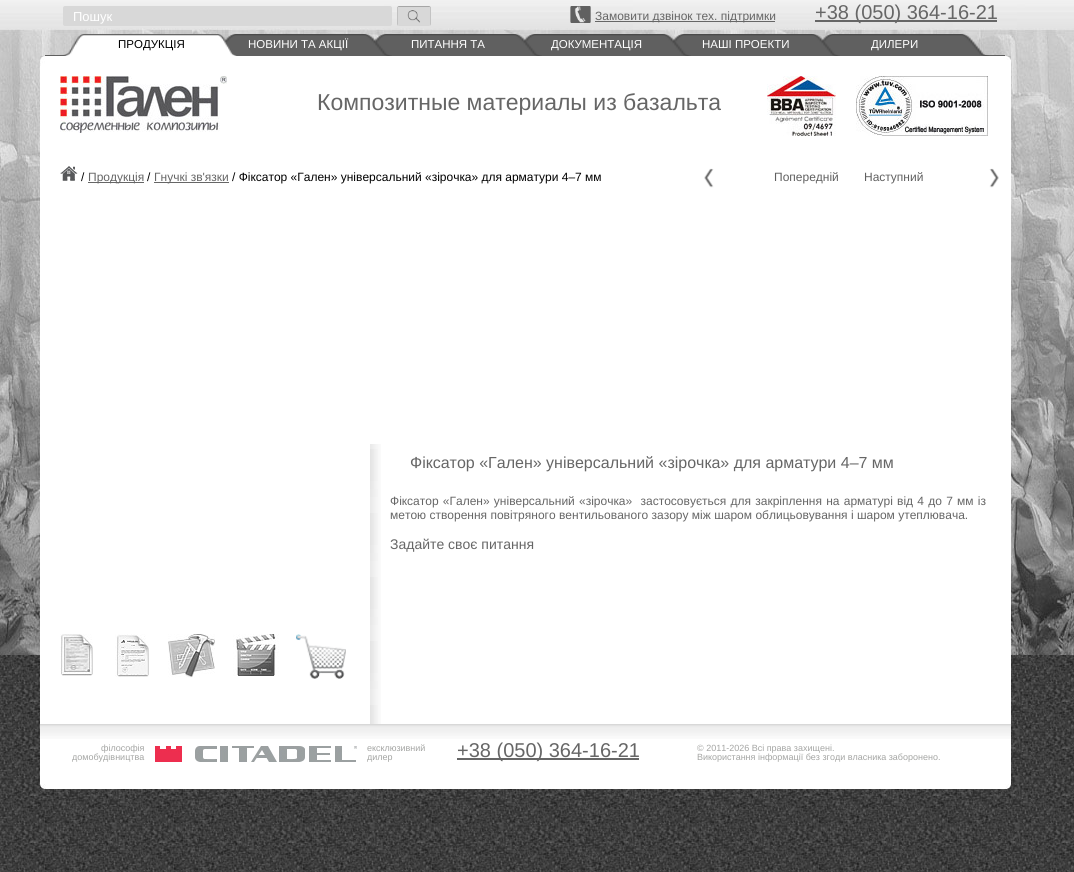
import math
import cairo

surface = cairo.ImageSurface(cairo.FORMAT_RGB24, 1074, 872)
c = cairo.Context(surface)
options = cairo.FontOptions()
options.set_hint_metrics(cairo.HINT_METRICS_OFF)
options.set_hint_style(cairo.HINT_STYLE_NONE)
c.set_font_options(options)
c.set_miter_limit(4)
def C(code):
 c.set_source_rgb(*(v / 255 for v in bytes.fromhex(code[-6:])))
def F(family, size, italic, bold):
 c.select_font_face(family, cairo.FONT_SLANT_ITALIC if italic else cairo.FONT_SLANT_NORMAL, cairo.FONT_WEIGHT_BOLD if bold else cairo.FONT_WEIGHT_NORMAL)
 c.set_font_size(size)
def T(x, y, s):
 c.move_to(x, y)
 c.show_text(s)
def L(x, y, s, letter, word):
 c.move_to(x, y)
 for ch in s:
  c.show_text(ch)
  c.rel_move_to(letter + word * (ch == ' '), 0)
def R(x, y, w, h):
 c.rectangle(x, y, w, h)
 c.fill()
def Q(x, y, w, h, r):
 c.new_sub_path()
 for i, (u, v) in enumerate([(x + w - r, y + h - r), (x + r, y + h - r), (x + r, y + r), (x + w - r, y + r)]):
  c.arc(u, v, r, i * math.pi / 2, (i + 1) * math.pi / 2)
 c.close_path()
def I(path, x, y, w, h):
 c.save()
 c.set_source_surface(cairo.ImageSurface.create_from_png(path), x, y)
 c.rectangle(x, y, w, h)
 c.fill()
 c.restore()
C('ffffff')
c.paint()
I('1.png',0,655,1074,217)
I('2.png',0,0,1074,655)
C('d8d8d8')
Q(63,6,329,20,2)
c.fill()
F('Liberation Sans',13,0,0)
C('ffffff')
T(73,21,'Пошук')
I('3.png',397,6,34,20)
I('4.png',570,6,21,17)
C('666666')
R(595,21,180,1)
F('Liberation Sans',12,0,0)
T(595,20,'Замовити дзвінок тех. підтримки')
R(815,20,182,2)
F('Liberation Sans',20,0,0)
T(815,19,'+38 (050) 364-16-21')
C('5f5f5f')
R(45,55,960,1)
I('10.png',821,34,168,22)
I('9.png',672,34,168,22)
I('8.png',523,34,168,22)
I('7.png',373,34,169,22)
I('6.png',224,34,168,22)
I('5.png',61,34,176,22)
F('Liberation Sans',11.5,0,0)
C('000000')
T(118,48,'ПРОДУКЦІЯ')
C('ffffff')
T(248,48,'НОВИНИ ТА АКЦІЇ')
T(411,48,'ПИТАННЯ ТА')
T(551,48,'ДОКУМЕНТАЦІЯ')
T(702,48,'НАШІ ПРОЕКТИ')
T(871,48,'ДИЛЕРИ')
R(40,56,971,668)
I('11.png',40,56,5,10)
I('12.png',1006,56,5,4)
I('13.png',60,76,167,57)
F('Liberation Sans',23,0,0)
C('666666')
T(317,110,'Композитные материалы из базальта')
I('14.png',767,76,69,60)
I('15.png',856,76,132,60)
I('16.png',60,166,18,15)
F('Liberation Sans',12,0,0)
C('000000')
T(81,181,'/')
C('666666')
R(88,182,56,1)
T(88,181,'Продукція')
C('000000')
T(147,181,'/')
C('666666')
R(154,182,75,1)
T(154,181,'Гнучкі зв\'язки')
C('000000')
T(232,181,'/ Фіксатор «Гален» універсальний «зірочка» для арматури 4–7 мм')
I('17.png',704,168,10,20)
C('606060')
T(774,181,'Попередній')
I('18.png',989,168,10,20)
T(864,181,'Наступний')
I('19.png',370,444,11,280)
F('Liberation Sans',16,0,0)
C('666666')
T(410,468,'Фіксатор «Гален» універсальний «зірочка» для арматури 4–7 мм')
F('Liberation Sans',12,0,0)
L(390,505,'Фіксатор «Гален» універсальний «зірочка»  застосовується для закріплення на арматурі від 4 до 7 мм із',0,.9)
T(390,519,'метою створення повітряного вентильованого зазору між шаром облицьовування і шаром утеплювача.')
F('Liberation Sans',14,0,0)
T(390,549,'Задайте своє питання')
I('20.png',60,634,33,42)
I('21.png',115,634,34,43)
I('22.png',168,634,47,44)
I('23.png',233,634,46,42)
I('24.png',296,634,50,45)
C('ffffff')
R(40,739,971,50)
I('25.png',40,724,971,15)
F('Liberation Sans',9,0,0)
C('a4a5a3')
T(101,751,'філософія')
T(72,760,'домобудівництва')
I('26.png',155,746,202,16)
T(367,751,'ексклюзивний')
T(367,760,'дилер')
C('666666')
R(457,758,182,2)
F('Liberation Sans',20,0,0)
T(457,757,'+38 (050) 364-16-21')
F('Liberation Sans',9,0,0)
C('a4a5a3')
T(697,751,'© 2011-2026 Всі права захищені.')
T(697,760,'Використання інформації без згоди власника заборонено.')
I('27.png',40,784,6,5)
I('28.png',1005,784,6,5)
surface.write_to_png('o.png')
